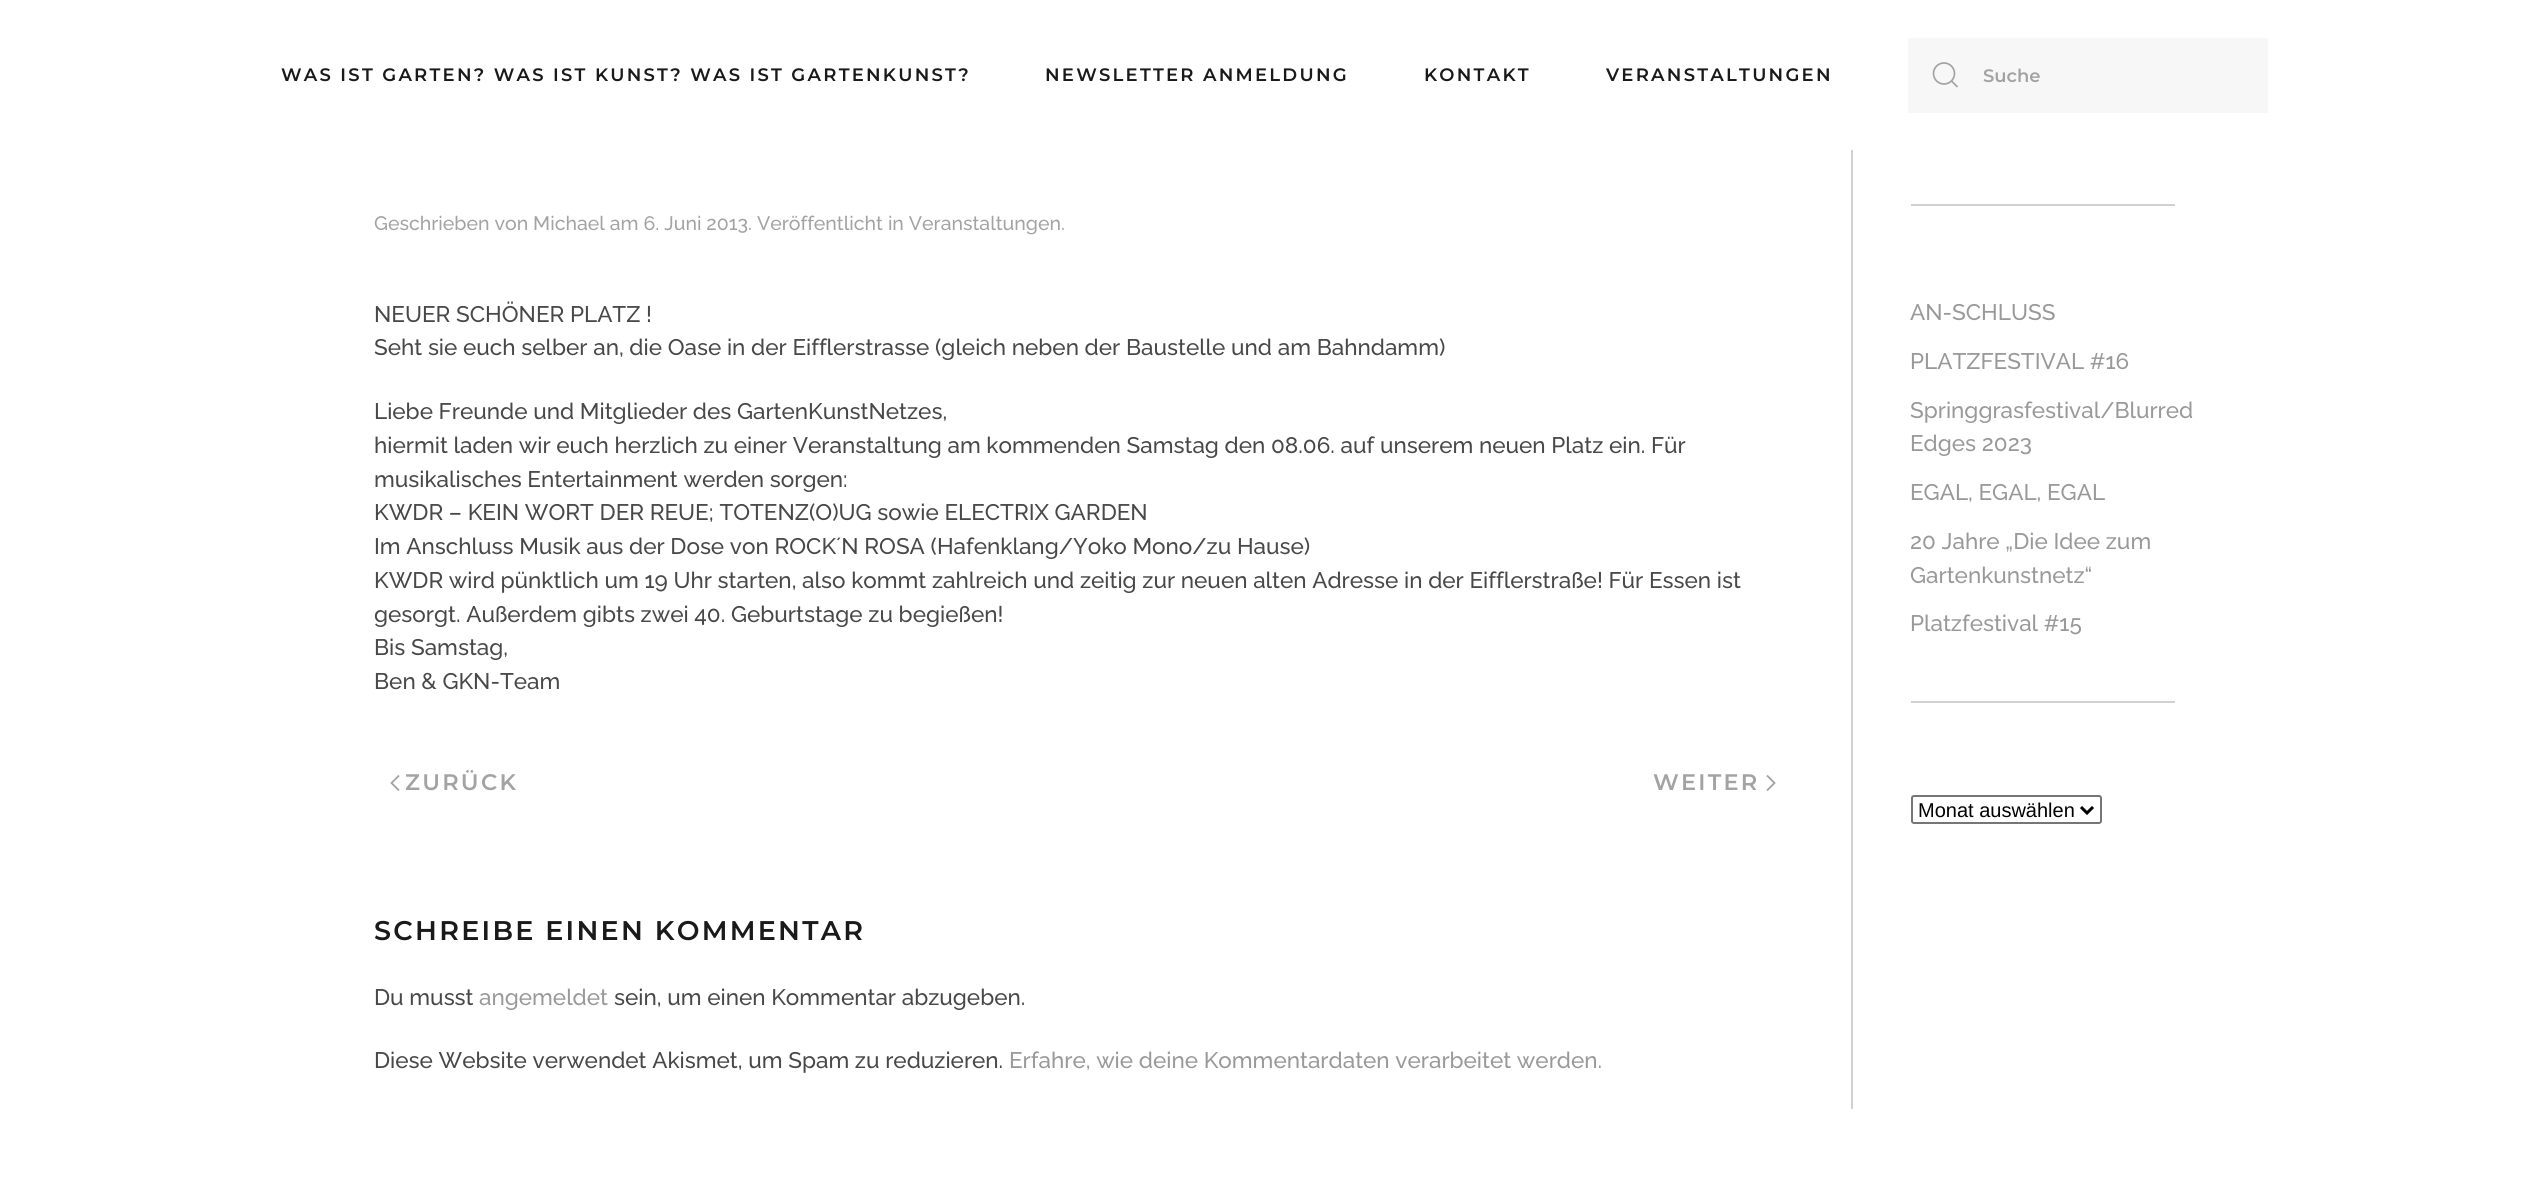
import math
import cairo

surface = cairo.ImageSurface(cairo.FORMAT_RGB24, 2548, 1184)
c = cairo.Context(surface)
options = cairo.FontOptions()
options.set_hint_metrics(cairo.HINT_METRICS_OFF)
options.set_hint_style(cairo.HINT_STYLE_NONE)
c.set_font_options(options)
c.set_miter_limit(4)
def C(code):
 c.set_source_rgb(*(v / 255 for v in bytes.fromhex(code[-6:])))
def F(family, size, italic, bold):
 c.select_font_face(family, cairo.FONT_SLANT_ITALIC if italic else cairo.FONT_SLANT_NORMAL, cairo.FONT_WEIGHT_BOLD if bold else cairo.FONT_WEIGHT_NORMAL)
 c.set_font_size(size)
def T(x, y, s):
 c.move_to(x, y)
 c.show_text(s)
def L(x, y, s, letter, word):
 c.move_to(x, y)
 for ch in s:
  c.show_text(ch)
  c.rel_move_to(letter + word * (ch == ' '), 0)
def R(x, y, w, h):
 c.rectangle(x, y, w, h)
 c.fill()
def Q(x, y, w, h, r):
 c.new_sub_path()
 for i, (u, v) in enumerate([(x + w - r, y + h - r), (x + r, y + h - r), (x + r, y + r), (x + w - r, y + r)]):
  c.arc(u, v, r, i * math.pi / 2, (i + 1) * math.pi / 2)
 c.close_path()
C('ffffff')
c.paint()
F('Montserrat Thin',18,0,0)
C('1a1a1a')
L(281,81,'WAS IST GARTEN? WAS IST KUNST? WAS IST GARTENKUNST?',2.25,0)
L(1045,81,'NEWSLETTER ANMELDUNG',2.25,0)
L(1424,81,'KONTAKT',2.25,0)
L(1606,81,'VERANSTALTUNGEN',2.25,0)
C('f7f7f7')
R(1908,38,360,75)
c.new_path()
c.arc(1944,73.5,10.5,0,2 * math.pi)
C('a3a3a3')
c.set_line_width(1.7)
c.stroke()
c.new_path()
c.move_to(1951.5,81)
c.line_to(1957.5,87)
c.close_path()
c.stroke()
T(1983,82,'Suche')
F('Raleway Thin',19.5,0,0)
T(374,230,'Geschrieben von Michael am 6. Juni 2013. Veröffentlicht in Veranstaltungen.')
F('Raleway Thin',22.5,0,0)
C('484848')
T(374,322,'NEUER SCHÖNER PLATZ !')
T(374,355,'Seht sie euch selber an, die Oase in der Eifflerstrasse (gleich neben der Baustelle und am Bahndamm)')
T(374,419,'Liebe Freunde und Mitglieder des GartenKunstNetzes,')
T(374,453,'hiermit laden wir euch herzlich zu einer Veranstaltung am kommenden Samstag den 08.06. auf unserem neuen Platz ein. Für')
T(374,487,'musikalisches Entertainment werden sorgen:')
T(374,520,'KWDR – KEIN WORT DER REUE; TOTENZ(O)UG sowie ELECTRIX GARDEN')
T(374,554,'Im Anschluss Musik aus der Dose von ROCK´N ROSA (Hafenklang/Yoko Mono/zu Hause)')
T(374,588,'KWDR wird pünktlich um 19 Uhr starten, also kommt zahlreich und zeitig zur neuen alten Adresse in der Eifflerstraße! Für Essen ist')
T(374,622,'gesorgt. Außerdem gibts zwei 40. Geburtstage zu begießen!')
T(374,655,'Bis Samstag,')
T(374,689,'Ben & GKN-Team')
c.new_path()
c.move_to(399,775.5)
c.line_to(391.5,783)
c.line_to(399,790.5)
C('a3a3a3')
c.set_line_width(1.8)
c.stroke()
F('Montserrat Thin',22.5,0,0)
L(405,790,'ZURÜCK',2.25,0)
L(1653,790,'WEITER',2.25,0)
c.new_path()
c.move_to(1767,775.5)
c.line_to(1774.5,783)
c.line_to(1767,790.5)
c.stroke()
F('Montserrat Thin',27,0,0)
C('1a1a1a')
L(374,940,'SCHREIBE EINEN KOMMENTAR',2.25,0)
F('Raleway Thin',22.5,0,0)
C('484848')
T(374,1005,'Du musst')
C('999999')
T(479,1005,'angemeldet')
C('484848')
T(614,1005,'sein, um einen Kommentar abzugeben.')
T(374,1068,'Diese Website verwendet Akismet, um Spam zu reduzieren.')
C('999999')
T(1009,1068,'Erfahre, wie deine Kommentardaten verarbeitet werden.')
C('d1d1d1')
R(1851,150,2,959)
R(1911,204,264,2)
C('999999')
T(1910,320,'AN-SCHLUSS')
T(1910,369,'PLATZFESTIVAL #16')
T(1910,418,'Springgrasfestival/Blurred')
T(1910,451,'Edges 2023')
T(1910,500,'EGAL, EGAL, EGAL')
T(1910,549,'20 Jahre „Die Idee zum')
T(1910,583,'Gartenkunstnetz“')
T(1910,631,'Platzfestival #15')
C('d1d1d1')
R(1911,701,264,2)
Q(1912,796,189,27,2)
C('767676')
c.set_line_width(2)
c.stroke()
c.new_path()
c.move_to(2081,807)
c.line_to(2087,813)
c.line_to(2093,807)
C('000000')
c.set_line_width(3)
c.stroke()
F('Liberation Sans',20,0,0)
T(1918,817,'Monat auswählen')
surface.write_to_png('o.png')
